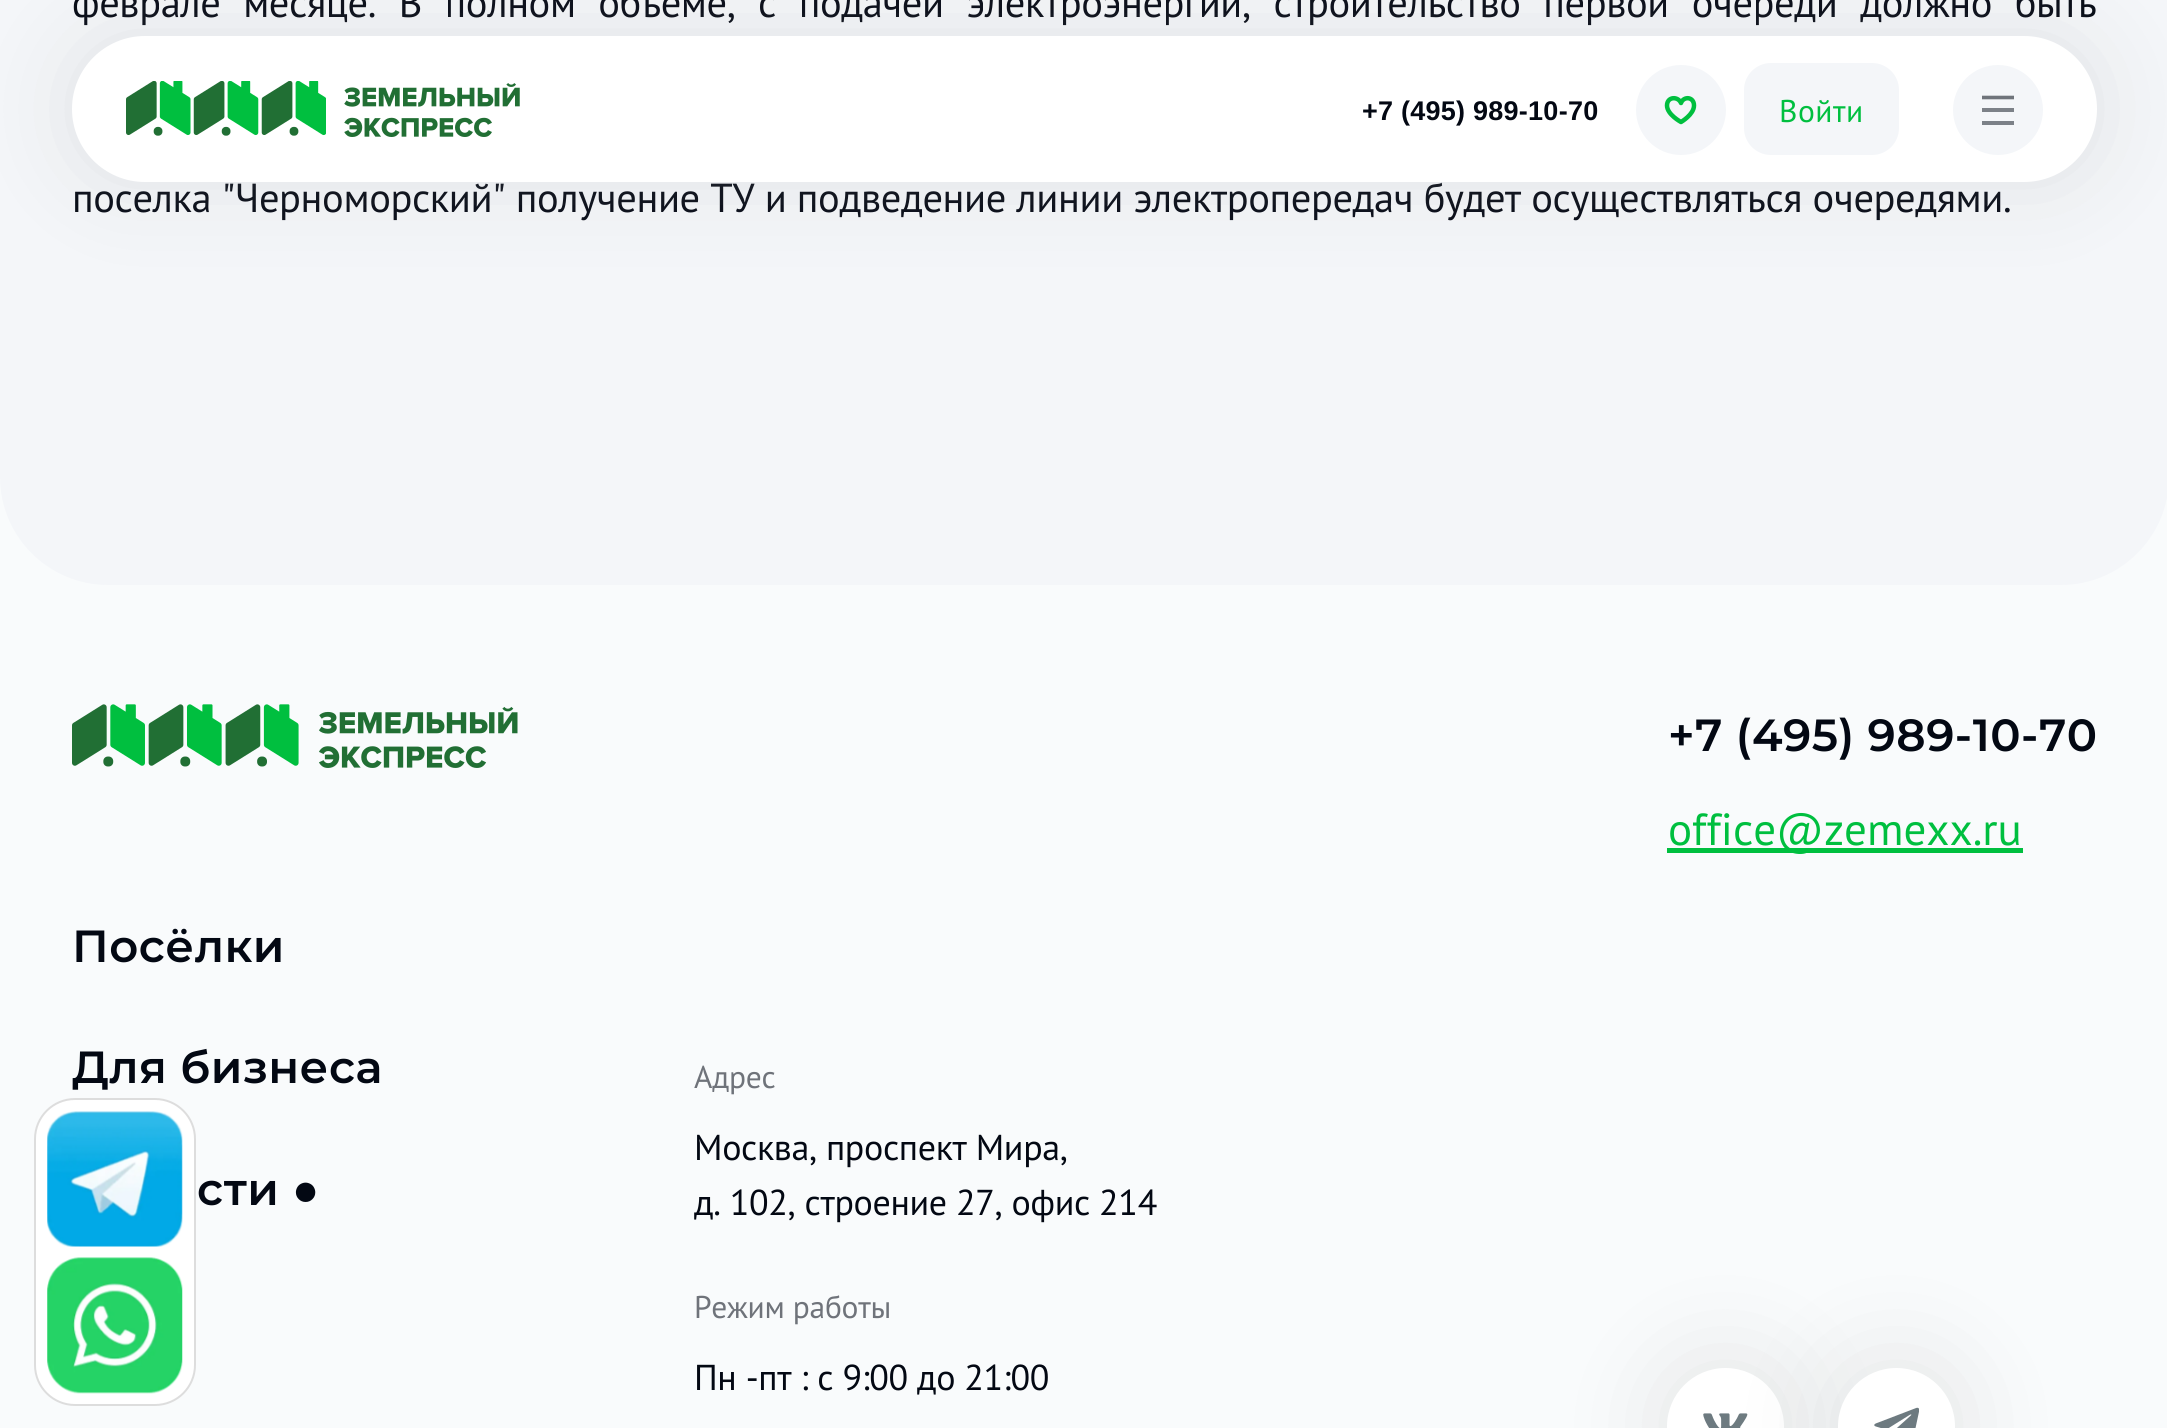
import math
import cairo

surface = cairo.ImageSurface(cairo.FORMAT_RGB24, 2167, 1428)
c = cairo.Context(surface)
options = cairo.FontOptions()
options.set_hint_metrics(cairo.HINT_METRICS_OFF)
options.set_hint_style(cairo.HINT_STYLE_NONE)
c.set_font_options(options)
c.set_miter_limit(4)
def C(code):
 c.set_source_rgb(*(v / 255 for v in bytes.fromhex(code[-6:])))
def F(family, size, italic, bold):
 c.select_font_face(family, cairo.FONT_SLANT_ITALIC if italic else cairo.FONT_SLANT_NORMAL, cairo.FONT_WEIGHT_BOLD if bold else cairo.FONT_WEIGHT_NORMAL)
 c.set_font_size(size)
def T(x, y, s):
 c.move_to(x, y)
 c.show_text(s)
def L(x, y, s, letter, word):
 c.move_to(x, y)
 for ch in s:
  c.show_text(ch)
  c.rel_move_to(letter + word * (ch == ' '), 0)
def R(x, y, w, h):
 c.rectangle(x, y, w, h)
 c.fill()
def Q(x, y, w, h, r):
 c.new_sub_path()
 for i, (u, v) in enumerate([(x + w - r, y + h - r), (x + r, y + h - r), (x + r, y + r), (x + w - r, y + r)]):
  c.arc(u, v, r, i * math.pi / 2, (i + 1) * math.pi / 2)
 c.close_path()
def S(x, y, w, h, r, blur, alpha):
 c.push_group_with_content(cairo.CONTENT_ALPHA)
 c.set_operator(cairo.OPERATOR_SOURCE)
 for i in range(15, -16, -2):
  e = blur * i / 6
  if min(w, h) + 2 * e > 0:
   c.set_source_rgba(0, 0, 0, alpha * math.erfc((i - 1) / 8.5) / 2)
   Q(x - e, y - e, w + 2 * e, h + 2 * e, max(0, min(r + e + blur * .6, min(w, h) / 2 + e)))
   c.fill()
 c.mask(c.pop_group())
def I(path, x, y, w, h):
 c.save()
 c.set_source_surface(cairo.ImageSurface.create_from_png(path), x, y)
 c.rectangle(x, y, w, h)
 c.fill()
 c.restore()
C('f9fbfc')
c.paint()
C('f4f6f9')
c.new_path()
c.move_to(0,-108)
c.line_to(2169,-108)
c.line_to(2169,477)
c.curve_to(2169,536.5,2120.5,585,2061,585)
c.line_to(108,585)
c.curve_to(48.5,585,0,536.5,0,477)
c.close_path()
c.fill()
F('PT Sans',40.5,0,0)
C('030813')
L(72,17,'феврале месяце. В полном объеме, с подачей электроэнергии, строительство первой очереди должно быть',-.4,12.25)
L(72,212,'поселка "Черноморский" получение ТУ и подведение линии электропередач будет осуществляться очередями.',-.4,0)
C('ababab')
S(72,36,2025,146,73,46,.25)
C('ffffff')
Q(72,36,2025,146,73)
c.fill()
I('1.png',126,81,394,56)
F('Liberation Sans',27,0,1)
C('030813')
L(1362,120,'+7 (495) 989-10-70',.25,0)
C('f4f6f9')
c.new_path()
c.arc(1681,110,45,0,2 * math.pi)
c.fill()
c.new_path()
c.move_to(1681,103)
c.curve_to(1683.5,96,1694,96.5,1694,105.5)
c.curve_to(1694,114.5,1681,122,1681,122)
c.curve_to(1681,122,1667,114.5,1667,105.5)
c.curve_to(1667,96.5,1678,96,1681,103)
c.close_path()
C('00bf3f')
c.set_line_width(4.5)
c.set_line_cap(cairo.LINE_CAP_ROUND)
c.set_line_join(cairo.LINE_JOIN_ROUND)
c.stroke()
C('f4f6f9')
Q(1744,63,155,92,27)
c.fill()
F('PT Sans',31.5,0,0)
C('00bf3f')
L(1779,122,'Войти',.5,0)
C('f4f6f9')
c.new_path()
c.arc(1998,110,45,0,2 * math.pi)
c.fill()
c.new_path()
c.move_to(1982,97.5)
c.line_to(2014,97.5)
C('6f747b')
c.set_line_width(3.6)
c.set_line_cap(cairo.LINE_CAP_BUTT)
c.set_line_join(cairo.LINE_JOIN_MITER)
c.stroke()
C('7c8188')
R(1982,108,32,4)
R(1982,121,32,4)
F('Montserrat SemiBold',45,0,0)
C('030813')
L(1668,751,'+7 (495) 989-10-70',.5,0)
C('00bf3f')
R(1667,848,356,5)
F('PT Sans',45,0,0)
T(1668,845,'office@zemexx.ru')
C('9e9e9e')
S(1667,1368,117,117,58.5,50.5,.25)
C('ffffff')
c.arc(1725.5,1426.5,58.5,0,2 * math.pi)
c.fill()
I('2.png',1703,1413,45,15)
C('9e9e9e')
S(1838,1368,117,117,58.5,50.5,.25)
C('ffffff')
c.arc(1896.5,1426.5,58.5,0,2 * math.pi)
c.fill()
I('3.png',1874,1407,45,21)
I('4.png',72,704,446,64)
F('Montserrat SemiBold',45,0,0)
C('030813')
L(72,962,'Посёлки',.5,0)
L(72,1083,'Для бизнеса',.5,0)
L(197,1205,'сти',.5,0)
F('Liberation Sans',45,0,1)
L(292,1205,'●',.5,0)
F('PT Sans',31.5,0,0)
C('6f737a')
L(694,1088,'Адрес',-.25,0)
F('PT Sans',36,0,0)
C('030813')
L(694,1160,'Москва, проспект Мира,',-.35,0)
L(694,1215,'д. 102, строение 27, офис 214',-.35,0)
F('PT Sans',31.5,0,0)
C('6f737a')
L(694,1318,'Режим работы',-.25,0)
F('PT Sans',36,0,0)
C('030813')
L(694,1390,'Пн -пт : с 9:00 до 21:00',-.35,0)
C('ffffff')
Q(35,1099,160,306,40)
c.fill_preserve()
C('dddddd')
c.set_line_width(2)
c.stroke()
I('5.png',47,1111,136,136)
I('6.png',47,1257,136,137)
surface.write_to_png('o.png')
